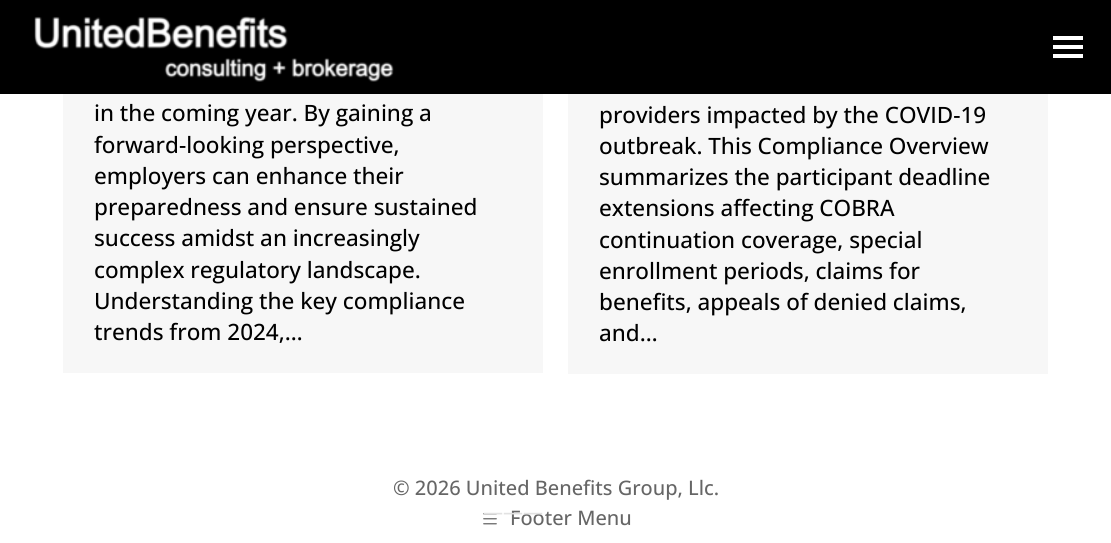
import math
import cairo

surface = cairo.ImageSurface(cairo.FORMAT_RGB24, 1111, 543)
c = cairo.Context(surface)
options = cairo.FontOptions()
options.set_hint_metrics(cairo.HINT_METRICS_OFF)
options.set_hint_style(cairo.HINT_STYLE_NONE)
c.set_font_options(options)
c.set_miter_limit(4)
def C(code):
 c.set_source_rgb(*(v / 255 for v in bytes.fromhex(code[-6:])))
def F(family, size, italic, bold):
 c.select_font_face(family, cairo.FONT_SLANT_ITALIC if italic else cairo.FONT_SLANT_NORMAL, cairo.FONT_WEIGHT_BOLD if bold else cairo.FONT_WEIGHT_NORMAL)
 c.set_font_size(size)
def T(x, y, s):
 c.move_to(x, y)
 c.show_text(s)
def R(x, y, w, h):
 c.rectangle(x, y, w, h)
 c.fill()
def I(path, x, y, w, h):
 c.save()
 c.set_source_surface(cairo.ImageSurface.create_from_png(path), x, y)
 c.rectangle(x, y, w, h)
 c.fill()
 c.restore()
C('ffffff')
c.paint()
C('000000')
R(0,0,1111,94)
I('1.png',34,16,360,66)
C('ffffff')
R(1053,36,30,4)
R(1053,45,30,4)
R(1053,54,30,4)
C('f7f7f7')
R(63,94,480,279)
F('Open Sans Medium',22.5,0,0)
C('000000')
T(94,121,'in the coming year. By gaining a')
T(94,153,'forward-looking perspective,')
T(94,184,'employers can enhance their')
T(94,215,'preparedness and ensure sustained')
T(94,246,'success amidst an increasingly')
T(94,278,'complex regulatory landscape.')
T(94,309,'Understanding the key compliance')
T(94,340,'trends from 2024,…')
C('f7f7f7')
R(568,94,480,280)
C('000000')
T(599,123,'providers impacted by the COVID-19')
T(599,154,'outbreak. This Compliance Overview')
T(599,185,'summarizes the participant deadline')
T(599,216,'extensions affecting COBRA')
T(599,248,'continuation coverage, special')
T(599,279,'enrollment periods, claims for')
T(599,310,'benefits, appeals of denied claims,')
T(599,341,'and…')
F('Open Sans Medium',20,0,0)
C('666666')
T(393,495,'© 2026 United Benefits Group, Llc.')
T(510,525,'Footer Menu')
I('2.png',483,513,14,12)
C('e2e2e2')
T(483,519,'———')
surface.write_to_png('o.png')
